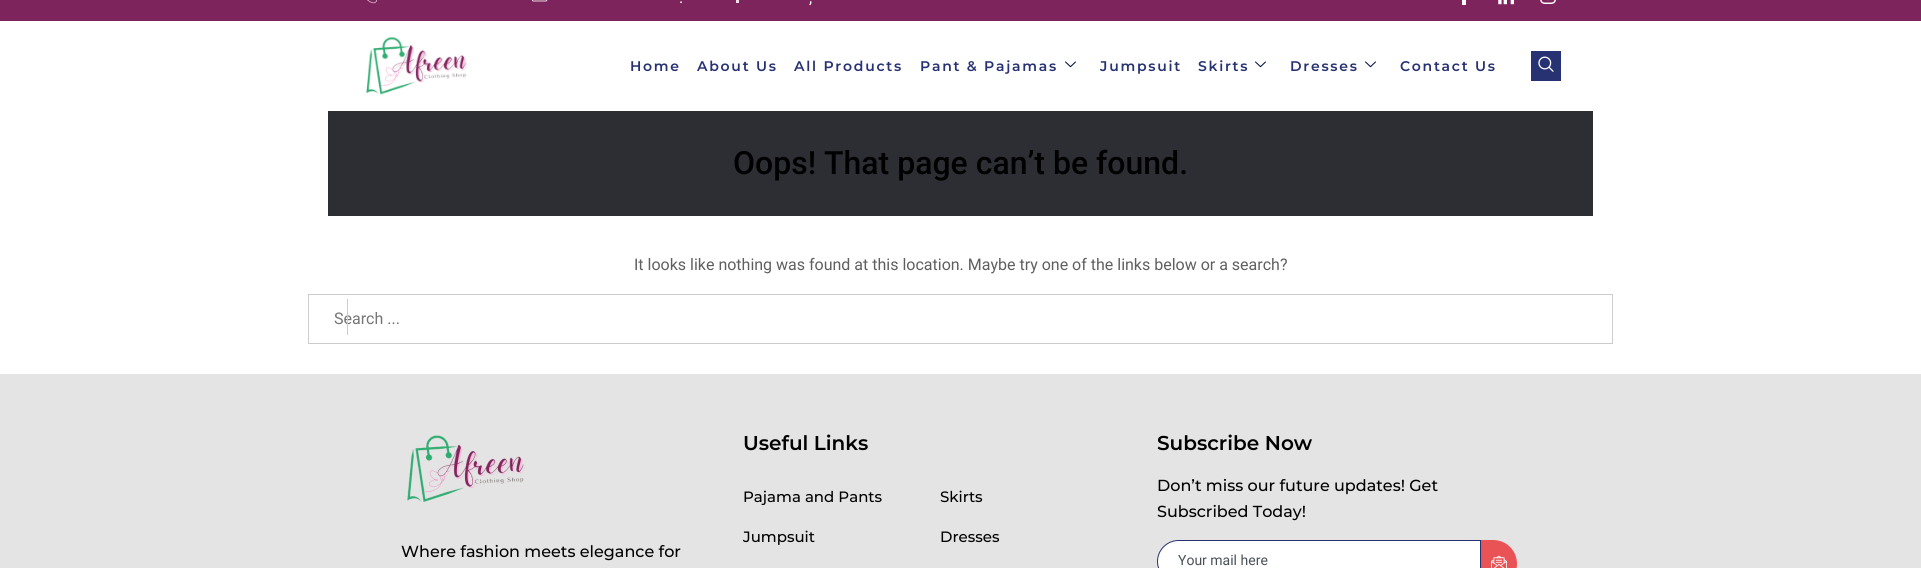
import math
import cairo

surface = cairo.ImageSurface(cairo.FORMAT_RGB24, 1921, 568)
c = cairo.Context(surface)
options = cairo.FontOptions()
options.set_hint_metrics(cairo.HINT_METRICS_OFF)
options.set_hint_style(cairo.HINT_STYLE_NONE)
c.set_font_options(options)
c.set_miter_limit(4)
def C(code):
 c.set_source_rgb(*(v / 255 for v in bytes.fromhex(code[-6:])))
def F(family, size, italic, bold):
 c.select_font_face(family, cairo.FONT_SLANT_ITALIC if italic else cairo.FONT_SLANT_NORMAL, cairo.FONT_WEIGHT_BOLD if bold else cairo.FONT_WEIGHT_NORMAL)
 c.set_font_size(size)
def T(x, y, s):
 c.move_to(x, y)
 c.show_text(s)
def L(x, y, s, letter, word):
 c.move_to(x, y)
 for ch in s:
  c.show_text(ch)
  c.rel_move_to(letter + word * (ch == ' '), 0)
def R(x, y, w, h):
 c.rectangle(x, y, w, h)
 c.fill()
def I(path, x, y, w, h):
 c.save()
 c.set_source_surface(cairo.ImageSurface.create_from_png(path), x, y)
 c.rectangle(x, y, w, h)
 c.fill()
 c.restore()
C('ffffff')
c.paint()
C('7e245c')
R(0,0,1921,21)
I('1.png',367,0,10,4)
I('2.png',532,0,16,2)
F('Roboto',16,0,0)
C('ffffff')
T(679,3,'.')
C('ede0e8')
R(736,0,3,3)
C('ffffff')
T(809,3,',')
R(1462,0,4,5)
I('3.png',1498,0,16,5)
I('4.png',1540,0,16,4)
I('5.png',366,37,102,58)
F('Montserrat SemiBold',14,0,0)
C('273272')
L(630,71,'Home',1.75,0)
L(697,71,'About Us',1.75,0)
L(794,71,'All Products',1.75,0)
L(920,71,'Pant & Pajamas',1.75,0)
I('6.png',1065,61,11,7)
L(1100,71,'Jumpsuit',1.75,0)
L(1198,71,'Skirts',1.75,0)
I('6.png',1255,61,11,7)
L(1290,71,'Dresses',1.75,0)
I('6.png',1365,61,11,7)
L(1400,71,'Contact Us',1.75,0)
R(1531,51,30,30)
I('7.png',1538,56,16,16)
C('2c2e33')
R(328,111,1265,105)
F('Roboto Medium',32,0,0)
C('000000')
T(733,174,'Oops! That page can’t be found.')
F('Roboto',16,0,0)
C('5f5f5f')
T(634,270,'It looks like nothing was found at this location. Maybe try one of the links below or a search?')
c.rectangle(308.5,294.5,1304,49)
C('cccccc')
c.set_line_width(1)
c.stroke()
C('757575')
T(334,324,'Search ...')
C('cccccc')
R(347,299,1,36)
C('e4e4e4')
R(0,374,1921,194)
I('8.png',407,435,119,67)
F('Montserrat Medium',16,0,0)
C('000000')
T(401,557,'Where fashion meets elegance for')
F('Montserrat SemiBold',20,0,0)
T(743,450,'Useful Links')
F('Montserrat Medium',15,0,0)
T(743,502,'Pajama and Pants')
T(743,542,'Jumpsuit')
T(940,502,'Skirts')
T(940,542,'Dresses')
F('Montserrat SemiBold',20,0,0)
T(1157,450,'Subscribe Now')
F('Montserrat Medium',16,0,0)
T(1157,491,'Don’t miss our future updates! Get')
T(1157,517,'Subscribed Today!')
C('ffffff')
c.new_path()
c.move_to(1178.5,540.5)
c.line_to(1480.5,540.5)
c.line_to(1480.5,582.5)
c.line_to(1178.5,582.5)
c.curve_to(1167,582.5,1157.5,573,1157.5,561.5)
c.curve_to(1157.5,550,1167,540.5,1178.5,540.5)
c.close_path()
c.fill_preserve()
C('273171')
c.stroke()
F('Roboto',14,0,0)
C('495057')
T(1178,565,'Your mail here')
C('ea5356')
c.new_path()
c.move_to(1481,540)
c.line_to(1493,540)
c.curve_to(1506.5,540,1517,550.5,1517,564)
c.curve_to(1517,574.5,1508.5,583,1498,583)
c.line_to(1481,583)
c.close_path()
c.fill()
I('9.png',1491,555,16,13)
surface.write_to_png('o.png')
